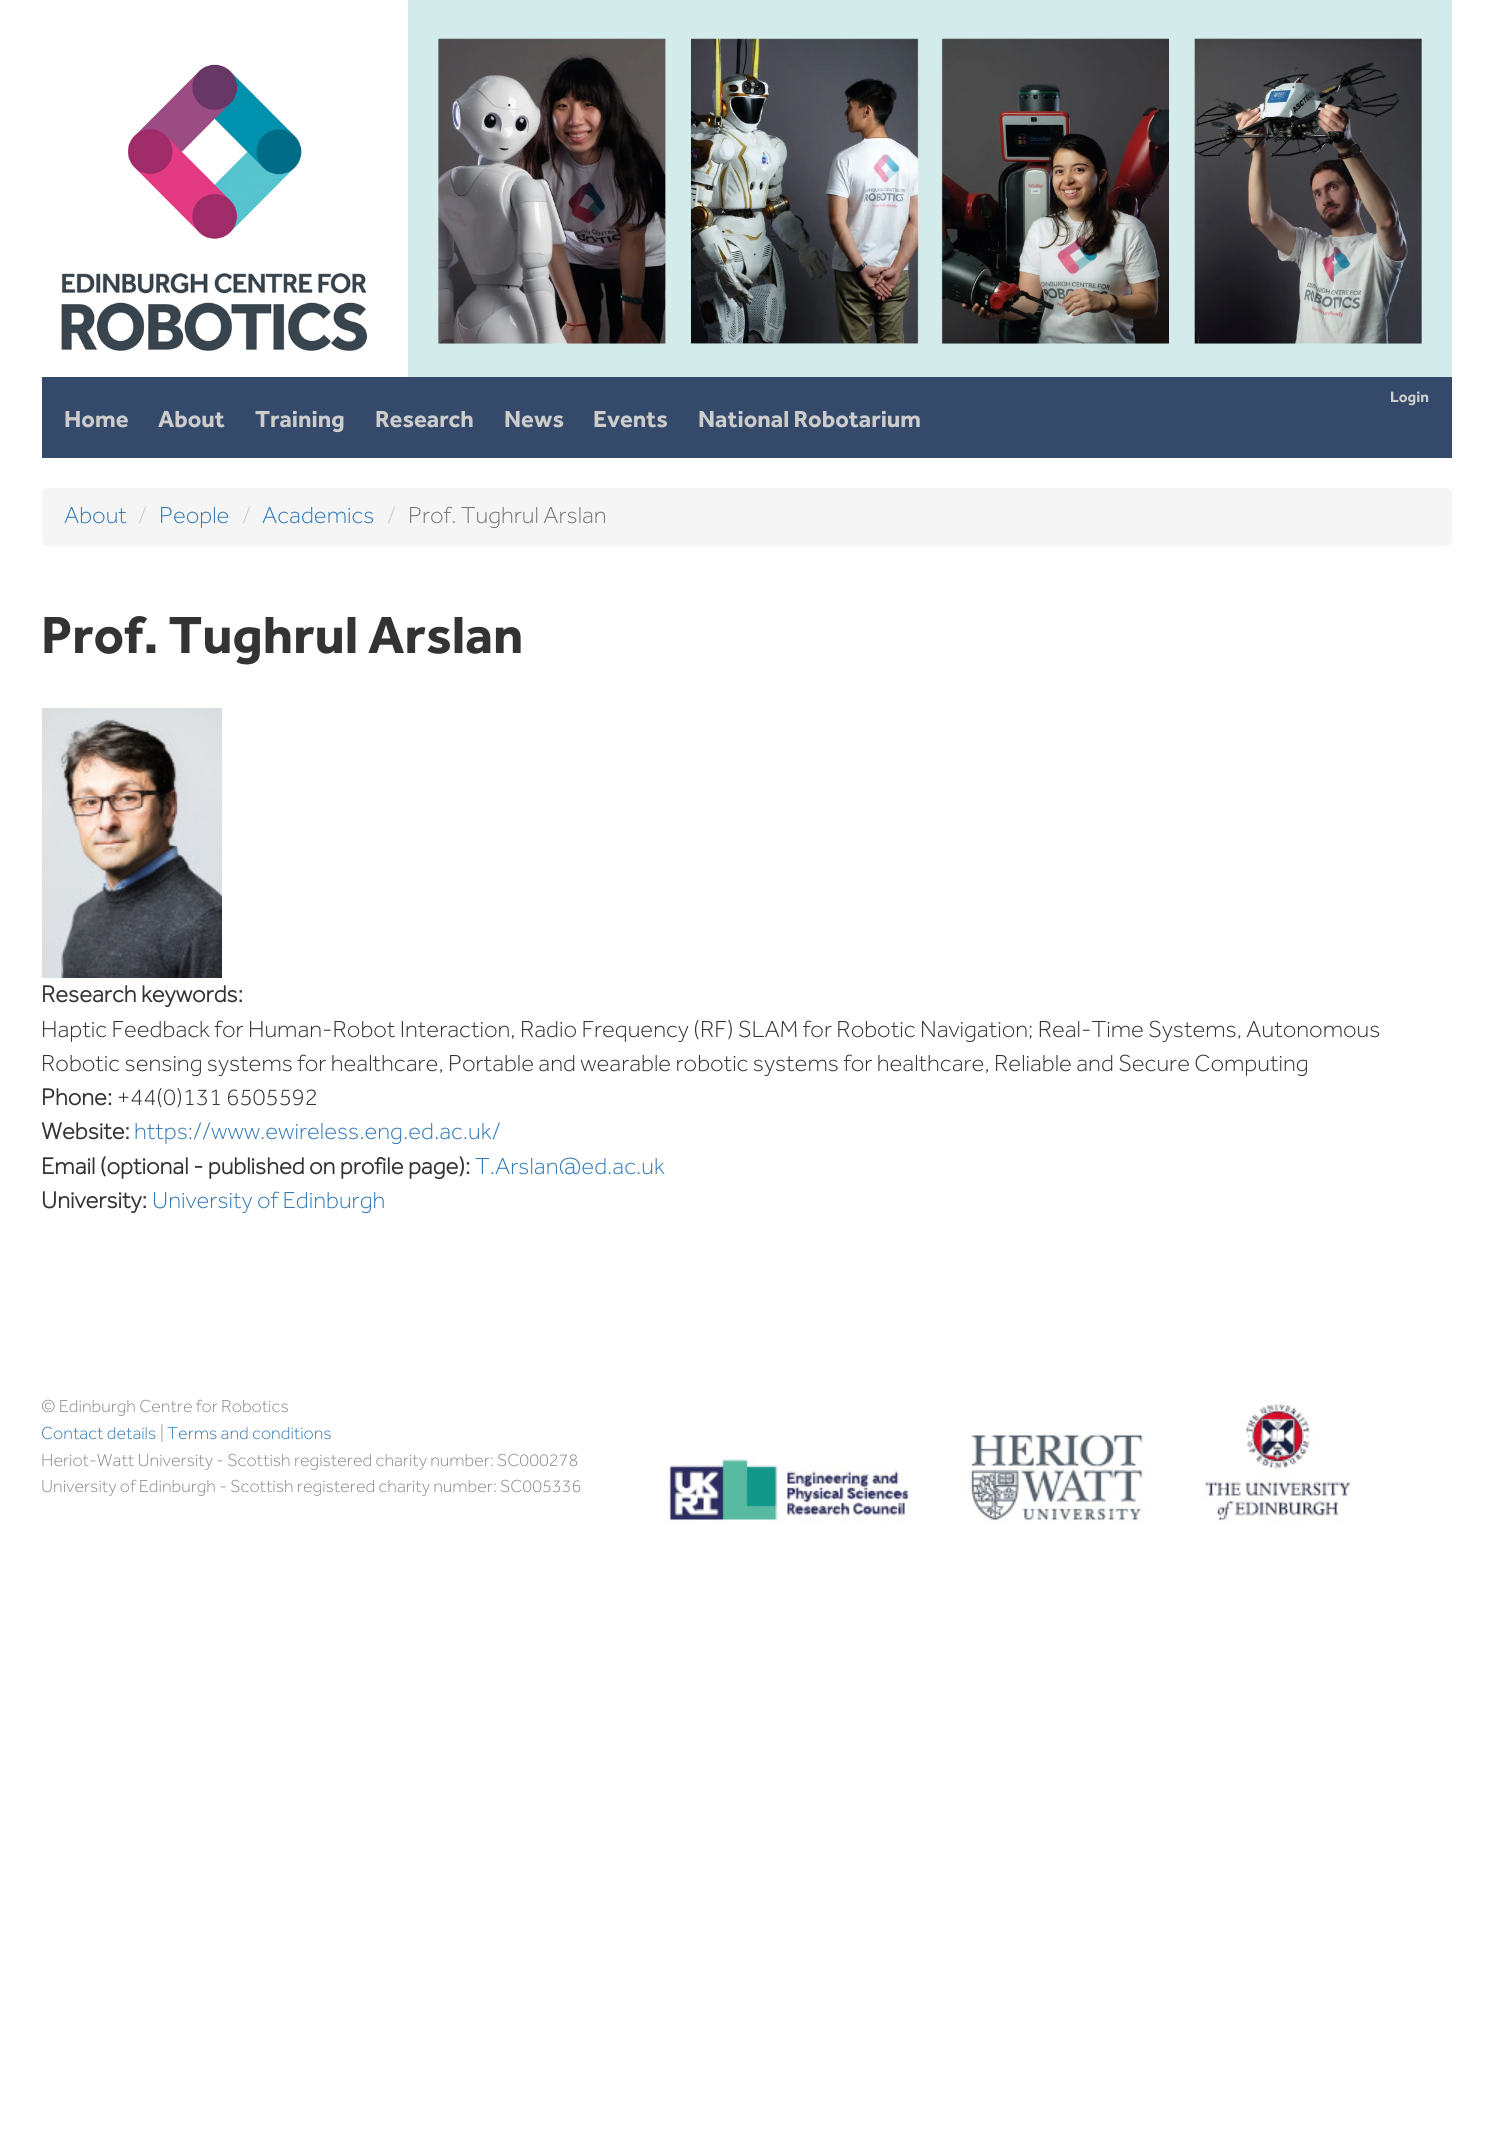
import math
import cairo

surface = cairo.ImageSurface(cairo.FORMAT_RGB24, 1492, 2132)
c = cairo.Context(surface)
options = cairo.FontOptions()
options.set_hint_metrics(cairo.HINT_METRICS_OFF)
options.set_hint_style(cairo.HINT_STYLE_NONE)
c.set_font_options(options)
c.set_miter_limit(4)
def C(code):
 c.set_source_rgb(*(v / 255 for v in bytes.fromhex(code[-6:])))
def F(family, size, italic, bold):
 c.select_font_face(family, cairo.FONT_SLANT_ITALIC if italic else cairo.FONT_SLANT_NORMAL, cairo.FONT_WEIGHT_BOLD if bold else cairo.FONT_WEIGHT_NORMAL)
 c.set_font_size(size)
def T(x, y, s):
 c.move_to(x, y)
 c.show_text(s)
def R(x, y, w, h):
 c.rectangle(x, y, w, h)
 c.fill()
def Q(x, y, w, h, r):
 c.new_sub_path()
 for i, (u, v) in enumerate([(x + w - r, y + h - r), (x + r, y + h - r), (x + r, y + r), (x + w - r, y + r)]):
  c.arc(u, v, r, i * math.pi / 2, (i + 1) * math.pi / 2)
 c.close_path()
def I(path, x, y, w, h):
 c.save()
 c.set_source_surface(cairo.ImageSurface.create_from_png(path), x, y)
 c.rectangle(x, y, w, h)
 c.fill()
 c.restore()
C('ffffff')
c.paint()
I('1.png',61,64,307,287)
I('2.png',408,0,1044,377)
C('354a6a')
R(42,377,1410,81)
F('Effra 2',15.5,0,1)
C('cccccc')
T(1390,402,'Login')
F('Effra 2',24,0,1)
T(64,427,'Home')
T(158,427,'About')
T(255,427,'Training')
T(375,427,'Research')
T(504,427,'News')
T(593,427,'Events')
T(698,427,'National Robotarium')
C('f5f5f5')
Q(42,488,1410,58,6)
c.fill()
F('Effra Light',24,0,0)
C('337ab7')
T(64,523,'About')
C('cccccc')
T(138,523,'/')
C('337ab7')
T(159,523,'People')
C('cccccc')
T(242,523,'/')
C('337ab7')
T(262,523,'Academics')
C('cccccc')
T(387,523,'/')
C('777777')
T(408,523,'Prof. Tughrul Arslan')
F('Effra 2',54,0,1)
C('333333')
T(41,653,'Prof. Tughrul Arslan')
I('3.png',42,708,180,270)
F('Effra',24,0,1)
T(41,1002,'Research keywords:')
F('Effra Light',24,0,0)
T(41,1037,'Haptic Feedback for Human-Robot Interaction, Radio Frequency (RF) SLAM for Robotic Navigation; Real-Time Systems, Autonomous')
T(41,1071,'Robotic sensing systems for healthcare, Portable and wearable robotic systems for healthcare, Reliable and Secure Computing')
F('Effra',24,0,1)
T(41,1105,'Phone:')
F('Effra Light',24,0,0)
T(117,1105,'+44(0)131 6505592')
F('Effra',24,0,1)
T(41,1139,'Website:')
F('Effra Light',24,0,0)
C('337ab7')
T(134,1139,'https://www.ewireless.eng.ed.ac.uk/')
F('Effra',24,0,1)
C('333333')
T(41,1174,'Email (optional - published on profile page):')
F('Effra Light',24,0,0)
C('337ab7')
T(475,1174,'T.Arslan@ed.ac.uk')
F('Effra',24,0,1)
C('333333')
T(41,1208,'University:')
F('Effra Light',24,0,0)
C('337ab7')
T(152,1208,'University of Edinburgh')
F('Effra Light',18,0,0)
C('888888')
T(41,1412,'© Edinburgh Centre for Robotics')
I('4.png',666,1403,685,122)
C('337ab7')
T(41,1439,'Contact details')
C('888888')
T(160,1439,'|')
C('337ab7')
T(167,1439,'Terms and conditions')
C('888888')
T(41,1466,'Heriot-Watt University - Scottish registered charity number: SC000278')
T(41,1492,'University of Edinburgh - Scottish registered charity number: SC005336')
surface.write_to_png('o.png')
